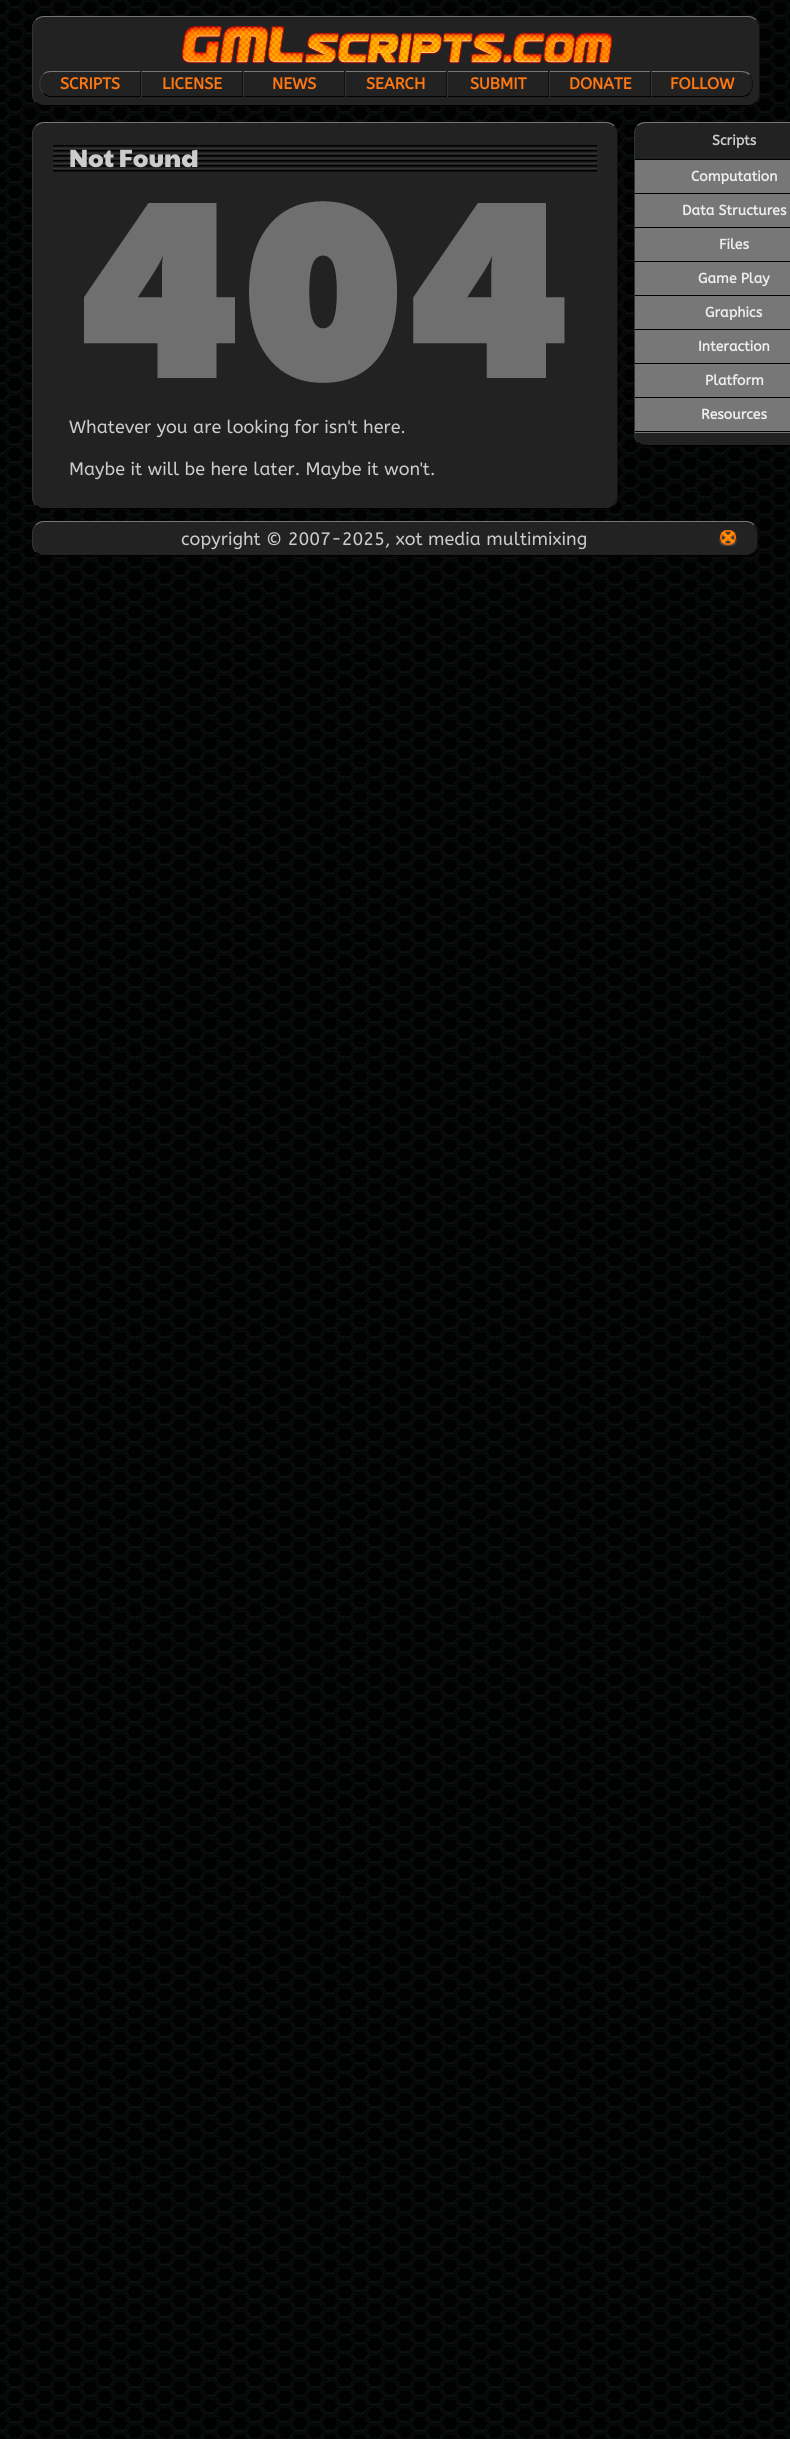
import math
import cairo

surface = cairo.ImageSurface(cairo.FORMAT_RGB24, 790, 2439)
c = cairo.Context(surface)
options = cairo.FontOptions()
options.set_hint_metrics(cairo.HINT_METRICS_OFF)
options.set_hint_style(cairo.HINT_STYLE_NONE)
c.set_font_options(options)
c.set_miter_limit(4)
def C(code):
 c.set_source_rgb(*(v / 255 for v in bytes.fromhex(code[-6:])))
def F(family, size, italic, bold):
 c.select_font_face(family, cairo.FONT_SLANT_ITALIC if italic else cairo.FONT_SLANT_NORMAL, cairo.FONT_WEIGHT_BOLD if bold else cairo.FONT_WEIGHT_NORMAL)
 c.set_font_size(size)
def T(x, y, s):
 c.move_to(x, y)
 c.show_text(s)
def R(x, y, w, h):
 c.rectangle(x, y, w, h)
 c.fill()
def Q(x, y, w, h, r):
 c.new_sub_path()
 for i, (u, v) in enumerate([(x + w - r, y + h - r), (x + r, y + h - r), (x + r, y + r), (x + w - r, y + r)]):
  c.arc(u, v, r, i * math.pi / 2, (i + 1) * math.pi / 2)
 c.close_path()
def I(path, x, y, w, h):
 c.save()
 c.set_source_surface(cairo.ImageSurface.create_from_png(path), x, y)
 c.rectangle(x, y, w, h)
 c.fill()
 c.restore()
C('ffffff')
c.paint()
I('1.png',0,0,790,2439)
C('222222')
Q(32,16,728,90,12)
c.fill()
c.new_path()
c.move_to(36,20)
c.curve_to(38,17.5,41,16.5,44,16.5)
c.line_to(748,16.5)
c.curve_to(751,16.5,754,17.5,756,20)
C('777777')
c.set_line_width(1)
c.stroke()
c.new_path()
c.move_to(756,20)
c.curve_to(758.5,22,759.5,25,759.5,28)
c.line_to(759.5,94)
c.curve_to(759.5,97,758.5,100,756,102)
C('111111')
c.stroke()
c.new_path()
c.move_to(756,102)
c.curve_to(754,104.5,751,105.5,748,105.5)
c.line_to(44,105.5)
c.curve_to(41,105.5,38,104.5,36,102)
C('000000')
c.stroke()
c.new_path()
c.move_to(36,102)
c.curve_to(33.5,100,32.5,97,32.5,94)
c.line_to(32.5,28)
c.curve_to(32.5,25,33.5,22,36,20)
C('333333')
c.stroke()
I('2.png',181,26,432,38)
C('777777')
c.new_path()
c.move_to(51,71)
c.curve_to(47,71,44,72,43,75)
c.curve_to(45,73,48,72,51,72)
c.line_to(140,72)
c.line_to(141,71)
c.close_path()
c.fill()
C('111111')
c.new_path()
c.move_to(141,71)
c.line_to(140,72)
c.line_to(140,96)
c.line_to(141,97)
c.close_path()
c.fill()
C('000000')
c.new_path()
c.move_to(141,97)
c.line_to(140,96)
c.line_to(49,96)
c.curve_to(47,95,45,94,43,93)
c.curve_to(44,95,46,96,49,97)
c.close_path()
c.fill()
C('333333')
c.new_path()
c.move_to(42.5,74.5)
c.curve_to(38,79.5,38,88.5,42.5,93.5)
c.line_to(43.5,92.5)
c.curve_to(39,88,39.5,80,43.5,75.5)
c.close_path()
c.fill()
F('ABeeZee',16,0,1)
C('ff7711')
T(60,89,'SCRIPTS')
C('777777')
R(141,71,510,1)
C('111111')
R(242,71,1,26)
C('000000')
R(141,96,102,1)
C('333333')
R(141,71,1,26)
C('ff7711')
T(162,89,'LICENSE')
C('111111')
R(344,71,1,26)
C('000000')
R(243,96,102,1)
C('333333')
R(243,71,1,26)
C('ff7711')
T(272,89,'NEWS')
C('111111')
R(446,71,1,26)
C('000000')
R(345,96,102,1)
C('333333')
R(345,71,1,26)
C('ff7711')
T(366,89,'SEARCH')
C('111111')
R(548,71,1,26)
C('000000')
R(447,96,102,1)
C('333333')
R(447,71,1,26)
C('ff7711')
T(470,89,'SUBMIT')
C('111111')
R(650,71,1,26)
C('000000')
R(549,96,102,1)
C('333333')
R(549,71,1,26)
C('ff7711')
T(569,89,'DONATE')
C('777777')
c.new_path()
c.move_to(651,71)
c.line_to(652,72)
c.line_to(741,72)
c.curve_to(744,72,747,73,749,75)
c.line_to(750,74)
c.curve_to(748,72,744,71,741,71)
c.close_path()
c.fill()
C('111111')
c.new_path()
c.move_to(753,85)
c.curve_to(753,81,752.5,77.5,749.5,74.5)
c.line_to(749,75)
c.curve_to(753,79.5,753,88.5,749,93)
c.line_to(749.5,93.5)
c.curve_to(752,91.5,753,88.5,753,85)
c.close_path()
c.fill()
C('000000')
c.new_path()
c.move_to(741,97)
c.curve_to(744,97,748,96,750,94)
c.line_to(749,93)
c.curve_to(747,95,744,96,741,96)
c.line_to(652,96)
c.line_to(651,97)
c.close_path()
c.fill()
C('333333')
c.new_path()
c.move_to(651,71)
c.line_to(651,97)
c.line_to(652,96)
c.line_to(652,72)
c.close_path()
c.fill()
C('ff7711')
T(670,89,'FOLLOW')
C('222222')
Q(32,122,586,387,12)
c.fill()
c.new_path()
c.move_to(36,126)
c.curve_to(38,123.5,41,122.5,44,122.5)
c.line_to(606,122.5)
c.curve_to(609,122.5,612,123.5,614,126)
C('777777')
c.stroke()
c.new_path()
c.move_to(614,126)
c.curve_to(616.5,128,617.5,131,617.5,134)
c.line_to(617.5,497)
c.curve_to(617.5,500,616.5,503,614,505)
C('111111')
c.stroke()
c.new_path()
c.move_to(614,505)
c.curve_to(612,507.5,609,508.5,606,508.5)
c.line_to(44,508.5)
c.curve_to(41,508.5,38,507.5,36,505)
C('000000')
c.stroke()
c.new_path()
c.move_to(36,505)
c.curve_to(33.5,503,32.5,500,32.5,497)
c.line_to(32.5,134)
c.curve_to(32.5,131,33.5,128,36,126)
C('333333')
c.stroke()
I('3.png',53,145,544,27)
F('Paytone One',25,0,0)
C('cccccc')
T(69,167,'Not Found')
I('4.png',84,201,481,182)
F('ABeeZee',18,0,0)
T(69,433,'Whatever you are looking for isn\'t here.')
T(69,475,'Maybe it will be here later. Maybe it won\'t.')
C('222222')
c.new_path()
c.move_to(646,122)
c.line_to(790,122)
c.curve_to(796.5,122,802,127.5,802,134)
c.line_to(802,160)
c.line_to(634,160)
c.line_to(634,134)
c.curve_to(634,127.5,639.5,122,646,122)
c.close_path()
c.fill()
C('777777')
c.new_path()
c.move_to(646,122)
c.curve_to(642,122,640,123,637,125)
c.line_to(638,126)
c.curve_to(640,124,643,123,646,123)
c.line_to(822,123)
c.curve_to(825,123,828,124,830,126)
c.line_to(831,125)
c.curve_to(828,123,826,122,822,122)
c.close_path()
c.fill()
C('000000')
c.new_path()
c.move_to(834,160)
c.line_to(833,159)
c.line_to(635,159)
c.line_to(634,160)
c.close_path()
c.fill()
C('333333')
c.new_path()
c.move_to(634,160)
c.line_to(635,159)
c.line_to(635,134)
c.curve_to(635,131,636,128,638,126)
c.line_to(637.5,125.5)
c.curve_to(635,127.5,634,130.5,634,134)
c.close_path()
c.fill()
F('ABeeZee',14,0,1)
C('cccccc')
T(712,145,'Scripts')
C('777777')
R(635,160,155,33)
C('000000')
R(634,193,156,1)
C('333333')
R(634,160,1,34)
C('eeeeee')
T(691,181,'Computation')
C('777777')
R(635,194,155,33)
C('000000')
R(634,227,156,1)
C('333333')
R(634,194,1,34)
C('eeeeee')
T(682,215,'Data Structures')
C('777777')
R(635,228,155,33)
C('000000')
R(634,261,156,1)
C('333333')
R(634,228,1,34)
C('eeeeee')
T(719,249,'Files')
C('777777')
R(635,262,155,33)
C('000000')
R(634,295,156,1)
C('333333')
R(634,262,1,34)
C('eeeeee')
T(698,283,'Game Play')
C('777777')
R(635,296,155,33)
C('000000')
R(634,329,156,1)
C('333333')
R(634,296,1,34)
C('eeeeee')
T(705,317,'Graphics')
C('777777')
R(635,330,155,33)
C('000000')
R(634,363,156,1)
C('333333')
R(634,330,1,34)
C('eeeeee')
T(698,351,'Interaction')
C('777777')
R(635,364,155,33)
C('000000')
R(634,397,156,1)
C('333333')
R(634,364,1,34)
C('eeeeee')
T(705,385,'Platform')
C('777777')
R(635,398,155,33)
C('000000')
R(634,431,156,1)
C('333333')
R(634,398,1,34)
C('eeeeee')
T(701,419,'Resources')
C('222222')
c.new_path()
c.move_to(634,432)
c.line_to(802,432)
c.line_to(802,434)
c.curve_to(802,440.5,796.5,446,790,446)
c.line_to(646,446)
c.curve_to(639.5,446,634,440.5,634,434)
c.close_path()
c.fill()
C('777777')
c.new_path()
c.move_to(634,432)
c.line_to(635,433)
c.line_to(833,433)
c.line_to(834,432)
c.close_path()
c.fill()
C('000000')
c.new_path()
c.move_to(646,446)
c.line_to(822,446)
c.curve_to(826,446,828,445,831,443)
c.line_to(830,442)
c.curve_to(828,444,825,445,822,445)
c.line_to(646,445)
c.curve_to(643,445,640,444,638,442)
c.line_to(637,443)
c.curve_to(640,445,642,446,646,446)
c.close_path()
c.fill()
C('333333')
c.new_path()
c.move_to(635,433)
c.line_to(634,432)
c.curve_to(634,436,634.5,439.5,637.5,442.5)
c.line_to(638,442)
c.curve_to(636,440,635,437,635,434)
c.close_path()
c.fill()
C('222222')
Q(32,521,726,35,12)
c.fill()
c.new_path()
c.move_to(36,525)
c.curve_to(38,522.5,41,521.5,44,521.5)
c.line_to(746,521.5)
c.curve_to(749,521.5,752,522.5,754,525)
C('777777')
c.stroke()
c.new_path()
c.move_to(754,525)
c.curve_to(758,528.5,757.5,533.5,757.5,538.5)
c.curve_to(757.5,543.5,758,548.5,754,552)
C('111111')
c.stroke()
c.new_path()
c.move_to(754,552)
c.curve_to(752,554.5,749,555.5,746,555.5)
c.line_to(44,555.5)
c.curve_to(41,555.5,38,554.5,36,552)
C('000000')
c.stroke()
c.new_path()
c.move_to(36,552)
c.curve_to(32,548.5,32.5,543.5,32.5,538.5)
c.curve_to(32.5,533.5,32,528.5,36,525)
C('333333')
c.stroke()
F('ABeeZee',18,0,0)
C('cccccc')
T(181,545,'copyright © 2007-2025, xot media multimixing')
I('5.png',719,530,18,16)
surface.write_to_png('o.png')
